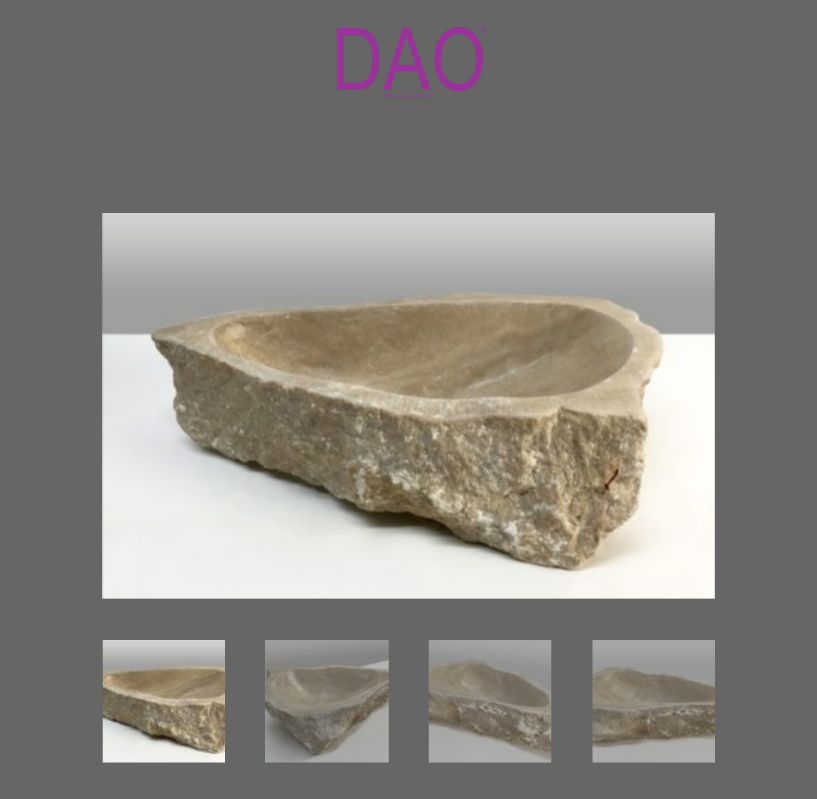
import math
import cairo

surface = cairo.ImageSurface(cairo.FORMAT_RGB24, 817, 799)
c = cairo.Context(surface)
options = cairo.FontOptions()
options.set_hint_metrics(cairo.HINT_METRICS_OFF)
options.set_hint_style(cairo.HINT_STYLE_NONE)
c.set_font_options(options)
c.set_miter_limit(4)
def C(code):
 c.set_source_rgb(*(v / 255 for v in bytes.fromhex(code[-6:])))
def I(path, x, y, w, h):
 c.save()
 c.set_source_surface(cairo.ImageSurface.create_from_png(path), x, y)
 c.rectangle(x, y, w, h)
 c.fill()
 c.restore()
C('666666')
c.paint()
I('1.png',336,26,151,72)
I('2.png',102,213,613,386)
I('3.png',102,640,123,123)
I('4.png',265,640,124,123)
I('5.png',428,640,124,123)
I('6.png',592,640,123,123)
surface.write_to_png('o.png')
